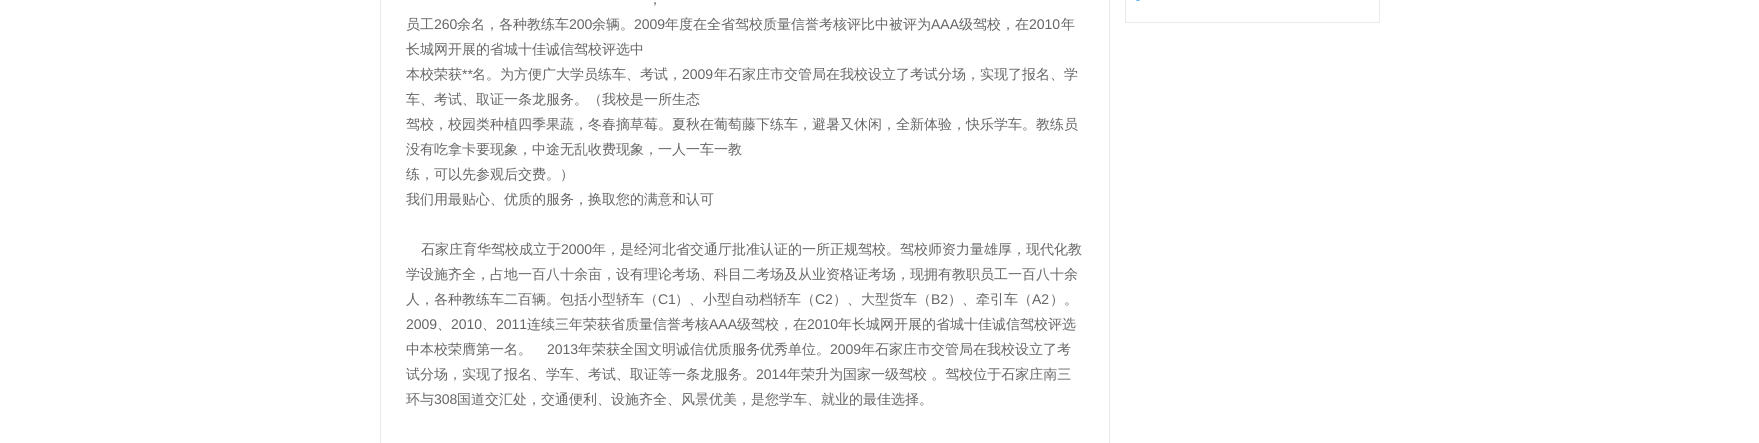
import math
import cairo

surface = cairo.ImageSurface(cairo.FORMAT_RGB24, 1759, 443)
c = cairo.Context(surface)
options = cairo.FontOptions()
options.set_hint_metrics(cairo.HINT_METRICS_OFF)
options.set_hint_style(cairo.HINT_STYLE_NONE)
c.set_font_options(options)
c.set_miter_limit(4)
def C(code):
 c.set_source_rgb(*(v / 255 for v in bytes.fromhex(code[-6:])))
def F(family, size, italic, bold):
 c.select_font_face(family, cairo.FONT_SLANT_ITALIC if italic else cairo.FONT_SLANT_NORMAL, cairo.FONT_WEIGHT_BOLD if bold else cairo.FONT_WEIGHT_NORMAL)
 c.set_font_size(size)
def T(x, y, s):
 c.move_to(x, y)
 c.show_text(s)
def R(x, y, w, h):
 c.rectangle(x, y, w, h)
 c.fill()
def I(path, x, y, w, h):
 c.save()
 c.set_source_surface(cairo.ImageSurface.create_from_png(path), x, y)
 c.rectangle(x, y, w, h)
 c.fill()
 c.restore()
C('ffffff')
c.paint()
C('eaeaea')
R(1109,0,1,443)
R(380,0,1,443)
F('WenQuanYi Zen Hei Medium',14,0,0)
C('666666')
T(648,4,'，')
T(406,29,'员工')
F('Liberation Sans',14,0,0)
T(434,29,'260')
F('WenQuanYi Zen Hei Medium',14,0,0)
T(457,29,'余名，各种教练车')
F('Liberation Sans',14,0,0)
T(569,29,'200')
F('WenQuanYi Zen Hei Medium',14,0,0)
T(592,29,'余辆。')
F('Liberation Sans',14,0,0)
T(634,29,'2009')
F('WenQuanYi Zen Hei Medium',14,0,0)
T(665,29,'年度在全省驾校质量信誉考核评比中被评为')
F('Liberation Sans',14,0,0)
T(931,29,'AAA')
F('WenQuanYi Zen Hei Medium',14,0,0)
T(959,29,'级驾校，在')
F('Liberation Sans',14,0,0)
T(1029,29,'2010')
F('WenQuanYi Zen Hei Medium',14,0,0)
T(1061,29,'年')
T(406,54,'长城网开展的省城十佳诚信驾校评选中')
T(406,79,'本校荣获')
F('Liberation Sans',14,0,0)
T(462,79,'**')
F('WenQuanYi Zen Hei Medium',14,0,0)
T(472,79,'名。为方便广大学员练车、考试，')
F('Liberation Sans',14,0,0)
T(682,79,'2009')
F('WenQuanYi Zen Hei Medium',14,0,0)
T(714,79,'年石家庄市交管局在我校设立了考试分场，实现了报名、学')
T(406,104,'车、考试、取证一条龙服务。（我校是一所生态')
T(406,129,'驾校，校园类种植四季果蔬，冬春摘草莓。夏秋在葡萄藤下练车，避暑又休闲，全新体验，快乐学车。教练员')
T(406,154,'没有吃拿卡要现象，中途无乱收费现象，一人一车一教')
T(406,179,'练，可以先参观后交费。）')
T(406,204,'我们用最贴心、优质的服务，换取您的满意和认可')
T(421,254,'石家庄育华驾校成立于')
F('Liberation Sans',14,0,0)
T(561,254,'2000')
F('WenQuanYi Zen Hei Medium',14,0,0)
T(592,254,'年，是经河北省交通厅批准认证的一所正规驾校。驾校师资力量雄厚，现代化教')
T(406,279,'学设施齐全，占地一百八十余亩，设有理论考场、科目二考场及从业资格证考场，现拥有教职员工一百八十余')
T(406,304,'人，各种教练车二百辆。包括小型轿车（')
F('Liberation Sans',14,0,0)
T(658,304,'C1')
F('WenQuanYi Zen Hei Medium',14,0,0)
T(675,304,'）、小型自动档轿车（')
F('Liberation Sans',14,0,0)
T(815,304,'C2')
F('WenQuanYi Zen Hei Medium',14,0,0)
T(833,304,'）、大型货车（')
F('Liberation Sans',14,0,0)
T(931,304,'B2')
F('WenQuanYi Zen Hei Medium',14,0,0)
T(948,304,'）、牵引车（')
F('Liberation Sans',14,0,0)
T(1032,304,'A2')
F('WenQuanYi Zen Hei Medium',14,0,0)
T(1050,304,'）。')
F('Liberation Sans',14,0,0)
T(406,329,'2009')
F('WenQuanYi Zen Hei Medium',14,0,0)
T(437,329,'、')
F('Liberation Sans',14,0,0)
T(451,329,'2010')
F('WenQuanYi Zen Hei Medium',14,0,0)
T(482,329,'、')
F('Liberation Sans',14,0,0)
T(496,329,'2011')
F('WenQuanYi Zen Hei Medium',14,0,0)
T(527,329,'连续三年荣获省质量信誉考核')
F('Liberation Sans',14,0,0)
T(709,329,'AAA')
F('WenQuanYi Zen Hei Medium',14,0,0)
T(737,329,'级驾校，在')
F('Liberation Sans',14,0,0)
T(807,329,'2010')
F('WenQuanYi Zen Hei Medium',14,0,0)
T(838,329,'年长城网开展的省城十佳诚信驾校评选')
T(406,354,'中本校荣膺第一名。')
F('Liberation Sans',14,0,0)
T(547,354,'2013')
F('WenQuanYi Zen Hei Medium',14,0,0)
T(578,354,'年荣获全国文明诚信优质服务优秀单位。')
F('Liberation Sans',14,0,0)
T(830,354,'2009')
F('WenQuanYi Zen Hei Medium',14,0,0)
T(861,354,'年石家庄市交管局在我校设立了考')
T(406,379,'试分场，实现了报名、学车、考试、取证等一条龙服务。')
F('Liberation Sans',14,0,0)
T(756,379,'2014')
F('WenQuanYi Zen Hei Medium',14,0,0)
T(787,379,'年荣升为国家一级驾校 。驾校位于石家庄南三')
T(406,404,'环与')
F('Liberation Sans',14,0,0)
T(434,404,'308')
F('WenQuanYi Zen Hei Medium',14,0,0)
T(457,404,'国道交汇处，交通便利、设施齐全、风景优美，是您学车、就业的最佳选择。')
c.rectangle(1125.5,-.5,254,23)
C('eaeaea')
c.set_line_width(1)
c.stroke()
I('1.png',1136,0,4,1)
surface.write_to_png('o.png')
